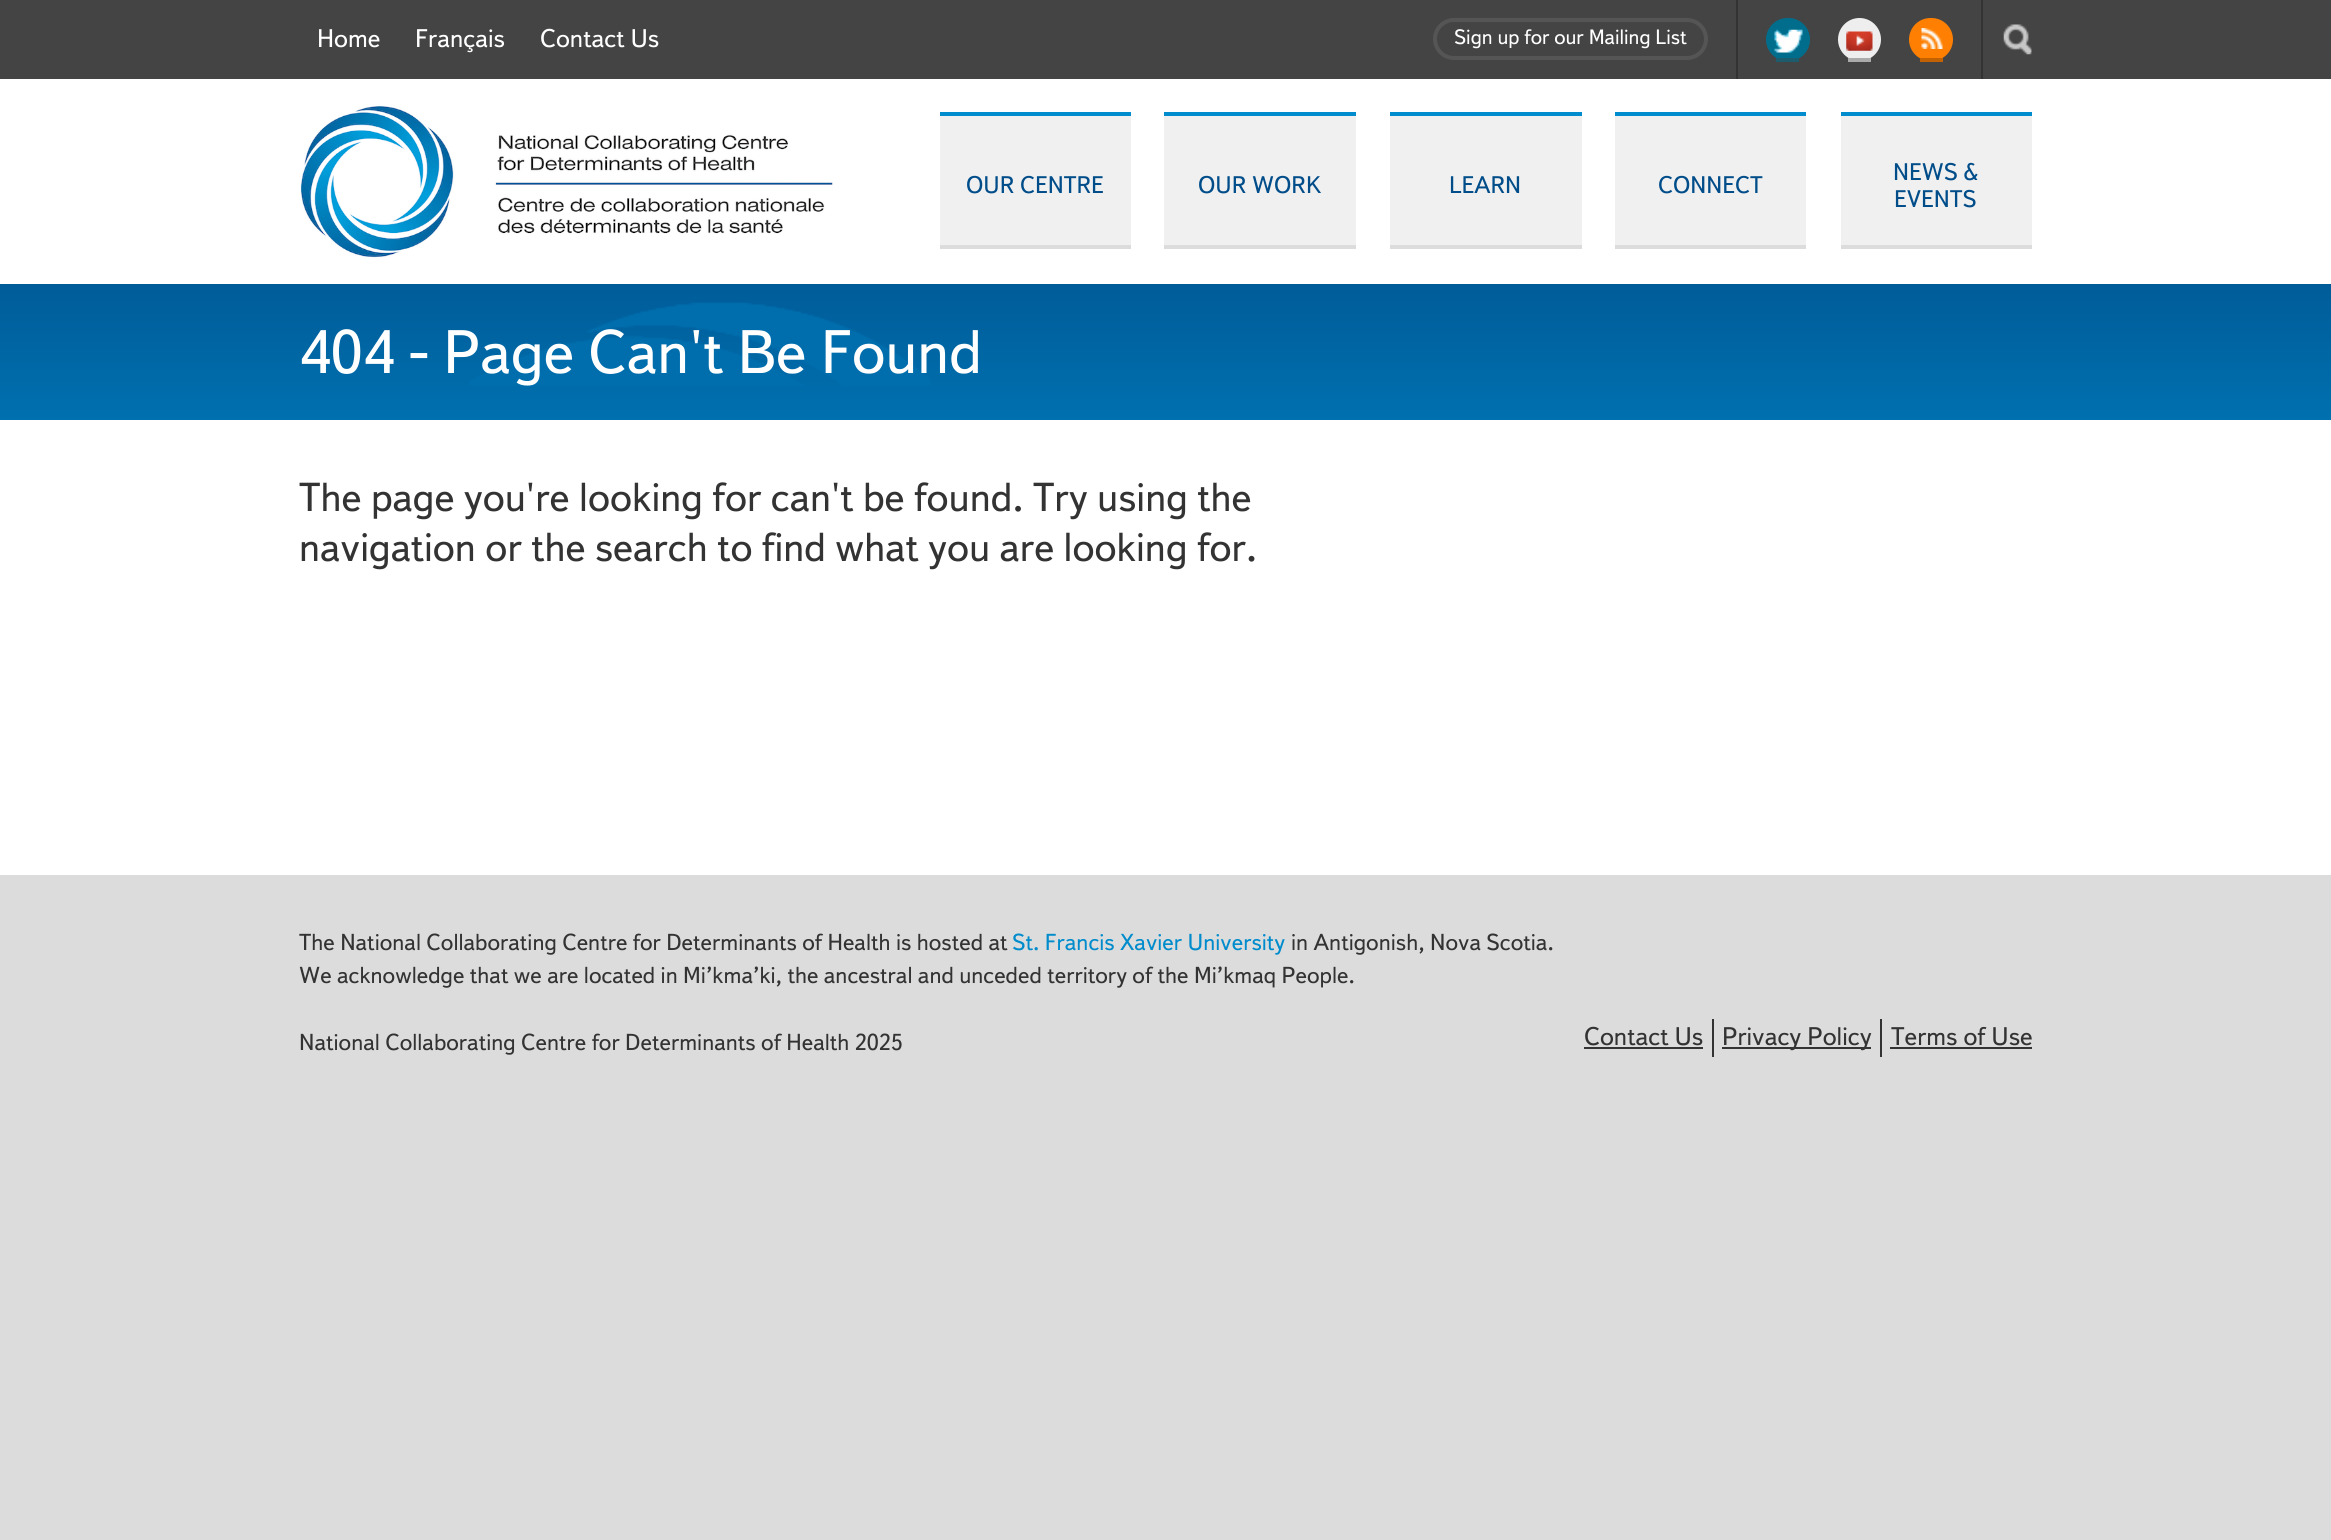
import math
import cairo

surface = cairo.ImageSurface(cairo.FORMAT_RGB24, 2331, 1540)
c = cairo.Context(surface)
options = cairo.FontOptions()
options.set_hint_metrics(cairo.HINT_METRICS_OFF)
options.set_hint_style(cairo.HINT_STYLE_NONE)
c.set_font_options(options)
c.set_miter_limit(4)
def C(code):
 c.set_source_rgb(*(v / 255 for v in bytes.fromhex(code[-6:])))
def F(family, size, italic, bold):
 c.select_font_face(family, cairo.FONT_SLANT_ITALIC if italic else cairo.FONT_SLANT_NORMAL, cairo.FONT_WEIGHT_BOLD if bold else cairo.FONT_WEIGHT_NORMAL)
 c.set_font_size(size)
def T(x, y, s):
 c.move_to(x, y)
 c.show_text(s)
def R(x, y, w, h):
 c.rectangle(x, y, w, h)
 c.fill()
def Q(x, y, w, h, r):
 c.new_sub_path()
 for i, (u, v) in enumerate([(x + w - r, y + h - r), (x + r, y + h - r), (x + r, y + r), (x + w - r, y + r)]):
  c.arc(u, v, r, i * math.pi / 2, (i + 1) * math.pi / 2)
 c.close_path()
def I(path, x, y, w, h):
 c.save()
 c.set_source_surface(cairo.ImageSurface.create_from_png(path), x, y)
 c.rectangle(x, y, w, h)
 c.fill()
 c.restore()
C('dcdcdc')
c.paint()
C('ffffff')
R(0,79,2331,205)
C('444444')
R(0,0,2331,79)
F('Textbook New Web',25.5,0,0)
C('ffffff')
T(317,47,'Home')
T(415,47,'Français')
T(540,47,'Contact Us')
Q(1435,20,271,38,19)
C('555555')
c.set_line_width(4)
c.stroke()
F('Textbook New Web',20.75,0,0)
C('ffffff')
T(1454,44,'Sign up for our Mailing List')
C('333333')
R(1981,0,2,79)
R(1736,0,2,79)
C('016d8c')
Q(1766,18,44,43,21.5)
c.fill()
C('1d5c6d')
R(1776,58,23,4)
I('1.png',1774,29,29,24)
C('eeeeee')
c.arc(1859.5,39.5,21.5,0,2 * math.pi)
c.fill()
C('aaaaaa')
R(1848,58,23,4)
I('2.png',1846,31,27,20)
C('ff7f02')
Q(1909,18,44,43,21.5)
c.fill()
C('c26203')
R(1920,58,23,4)
I('3.png',1921,28,22,21)
I('4.png',2003,24,29,31)
I('5.png',300,106,533,152)
C('f0f0f0')
R(940,116,191,129)
C('008ccd')
R(940,112,191,4)
C('dcdcdc')
R(940,245,191,4)
F('Textbook New Web',24,0,0)
C('004d8a')
T(966,193,'OUR CENTRE')
C('f0f0f0')
R(1164,116,192,129)
C('008ccd')
R(1164,112,192,4)
C('dcdcdc')
R(1164,245,192,4)
C('004d8a')
T(1198,193,'OUR WORK')
C('f0f0f0')
R(1390,116,192,129)
C('008ccd')
R(1390,112,192,4)
C('dcdcdc')
R(1390,245,192,4)
C('004d8a')
T(1449,193,'LEARN')
C('f0f0f0')
R(1615,116,191,129)
C('008ccd')
R(1615,112,191,4)
C('dcdcdc')
R(1615,245,191,4)
C('004d8a')
T(1658,193,'CONNECT')
C('f0f0f0')
R(1841,116,191,129)
C('008ccd')
R(1841,112,191,4)
C('dcdcdc')
R(1841,245,191,4)
C('004d8a')
T(1893,180,'NEWS &')
T(1894,207,'EVENTS')
C('ffffff')
R(0,420,2331,455)
gradient = cairo.LinearGradient(1166,420,1166,284)
gradient.add_color_stop_rgba(0,0,0.439,0.686,1)
gradient.add_color_stop_rgba(1,0,0.361,0.6,1)
c.set_source(gradient)
R(0,284,2331,136)
I('6.png',469,302,462,84)
F('Textbook New Web',61.25,0,0)
C('ffffff')
T(299,373,'404 - Page Can\'t Be Found')
F('Textbook New Web',40.4,0,0)
C('333333')
T(299,511,'The page you\'re looking for can\'t be found. Try using the')
T(299,561,'navigation or the search to find what you are looking for.')
F('Textbook New Web',23.1,0,0)
T(299,950,'The National Collaborating Centre for Determinants of Health is hosted at')
C('008ccc')
T(1012,950,'St. Francis Xavier University')
C('333333')
T(1291,950,'in Antigonish, Nova Scotia.')
T(299,983,'We acknowledge that we are located in Mi’kma’ki, the ancestral and unceded territory of the Mi’kmaq People.')
T(299,1050,'National Collaborating Centre for Determinants of Health 2025')
R(1712,1019,2,38)
F('Textbook New Web',25.5,0,0)
T(1584,1045,'Contact Us')
R(1584,1047,119,2)
R(1880,1019,2,38)
R(1722,1047,149,2)
T(1722,1045,'Privacy Policy')
T(1891,1045,'Terms of Use')
R(1890,1047,142,2)
surface.write_to_png('o.png')
